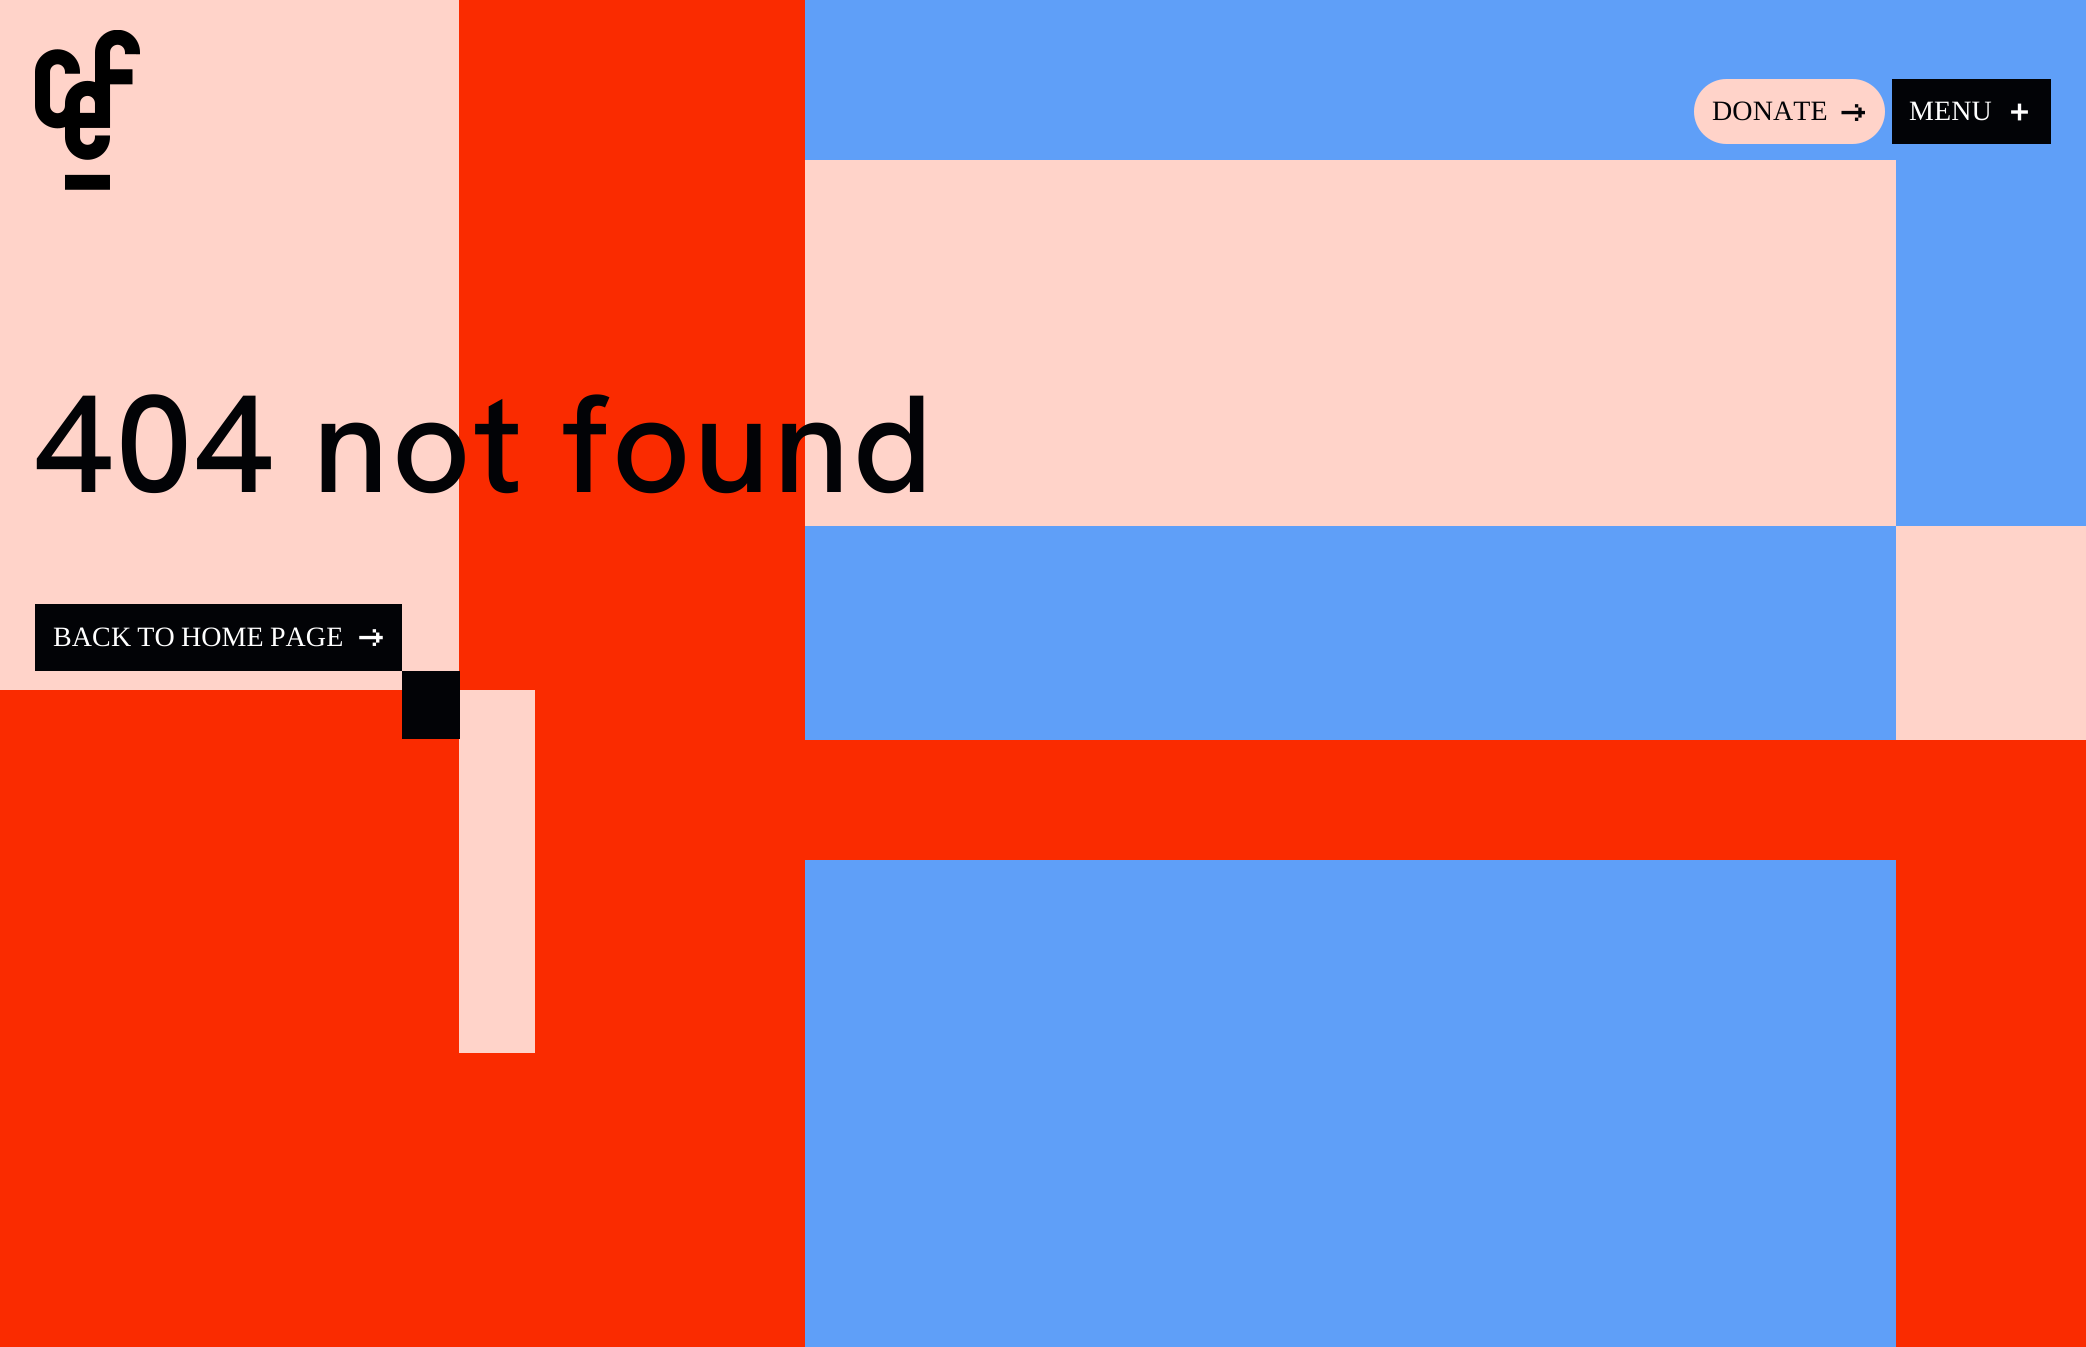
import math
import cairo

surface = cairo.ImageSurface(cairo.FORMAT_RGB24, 2086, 1347)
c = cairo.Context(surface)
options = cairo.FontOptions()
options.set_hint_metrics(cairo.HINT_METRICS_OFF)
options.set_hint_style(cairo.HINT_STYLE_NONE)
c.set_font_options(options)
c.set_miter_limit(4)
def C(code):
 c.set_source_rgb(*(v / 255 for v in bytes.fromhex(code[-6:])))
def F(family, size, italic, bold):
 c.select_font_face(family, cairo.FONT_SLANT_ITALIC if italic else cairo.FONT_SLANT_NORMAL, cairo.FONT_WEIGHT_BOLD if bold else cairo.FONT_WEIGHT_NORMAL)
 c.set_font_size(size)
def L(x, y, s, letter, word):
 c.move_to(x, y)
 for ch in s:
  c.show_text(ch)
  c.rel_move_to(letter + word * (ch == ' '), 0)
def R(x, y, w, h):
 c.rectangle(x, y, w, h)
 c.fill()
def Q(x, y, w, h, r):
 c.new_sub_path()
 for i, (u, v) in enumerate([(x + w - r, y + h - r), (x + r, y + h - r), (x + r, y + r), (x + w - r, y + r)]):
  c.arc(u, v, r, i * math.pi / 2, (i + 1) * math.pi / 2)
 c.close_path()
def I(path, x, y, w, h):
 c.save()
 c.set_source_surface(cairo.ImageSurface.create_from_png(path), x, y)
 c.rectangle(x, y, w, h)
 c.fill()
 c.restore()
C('fa2b00')
c.paint()
C('ffd3c9')
R(0,0,459,690)
I('1.png',35,30,105,160)
C('5f9ff8')
R(805,0,1281,740)
C('ffd3c9')
Q(1694,79,191,65,32.5)
c.fill()
F('Liberation Serif',28,0,0)
C('020306')
L(1712,120,'DONATE',.1,0)
I('2.png',1841,104,24,17)
R(1892,79,159,65)
C('ffffff')
L(1909,120,'MENU',.1,0)
I('3.png',2011,103,17,18)
C('ffd3c9')
R(459,690,76,363)
R(805,160,1091,366)
R(1896,526,190,214)
C('5f9ff8')
R(805,860,1091,487)
F('Hanken Grotesk Medium',138.25,0,0)
C('020306')
L(35,492,'404 not found',2.75,-2)
c.new_path()
c.move_to(35,604)
c.line_to(35,671)
c.line_to(402,671)
c.line_to(402,739)
c.line_to(460,739)
c.line_to(460,671)
c.line_to(402,671)
c.line_to(402,604)
c.close_path()
c.fill()
F('Liberation Serif',28,0,0)
C('ffffff')
L(53,646,'BACK TO HOME PAGE',.1,-1)
I('4.png',359,629,24,17)
surface.write_to_png('o.png')
